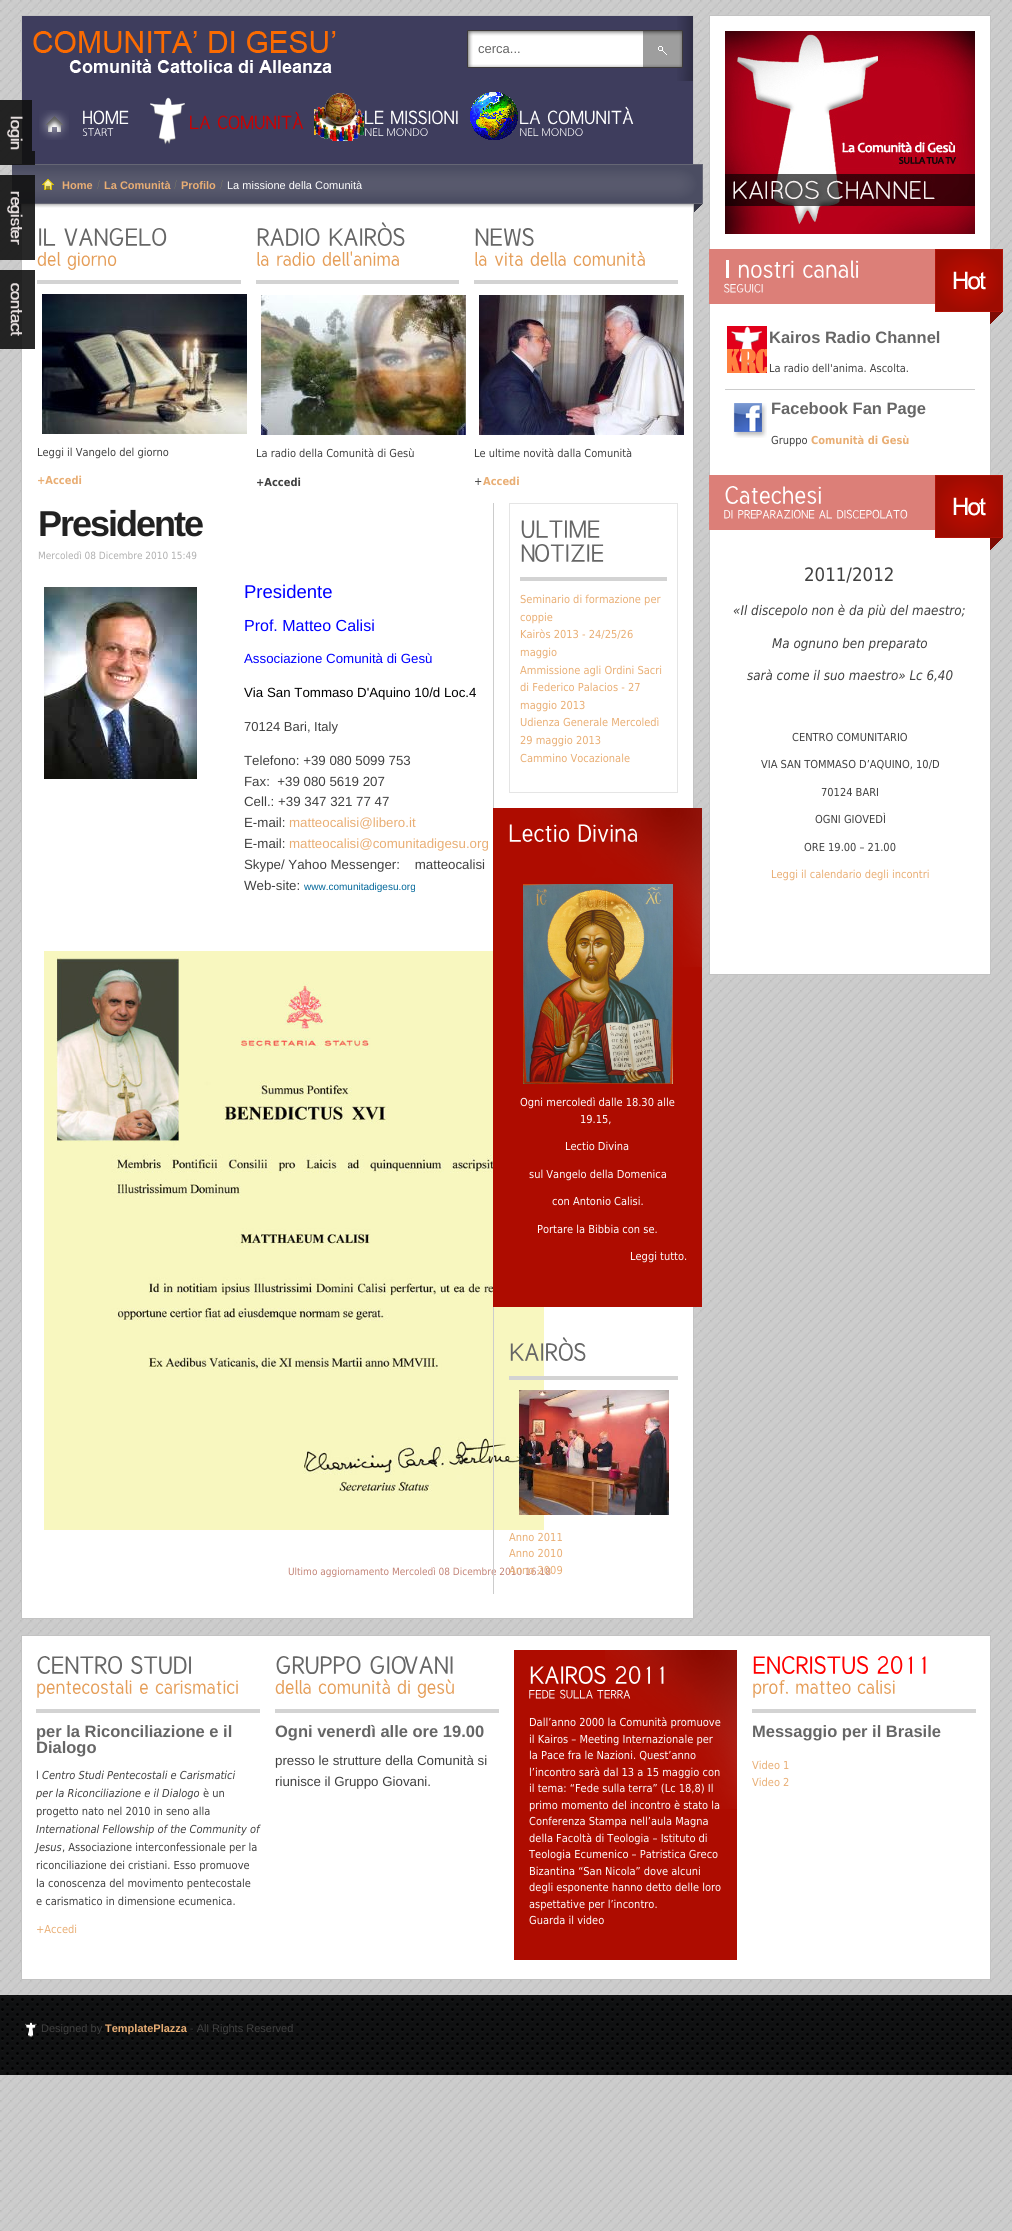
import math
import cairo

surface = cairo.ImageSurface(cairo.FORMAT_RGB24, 1012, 2231)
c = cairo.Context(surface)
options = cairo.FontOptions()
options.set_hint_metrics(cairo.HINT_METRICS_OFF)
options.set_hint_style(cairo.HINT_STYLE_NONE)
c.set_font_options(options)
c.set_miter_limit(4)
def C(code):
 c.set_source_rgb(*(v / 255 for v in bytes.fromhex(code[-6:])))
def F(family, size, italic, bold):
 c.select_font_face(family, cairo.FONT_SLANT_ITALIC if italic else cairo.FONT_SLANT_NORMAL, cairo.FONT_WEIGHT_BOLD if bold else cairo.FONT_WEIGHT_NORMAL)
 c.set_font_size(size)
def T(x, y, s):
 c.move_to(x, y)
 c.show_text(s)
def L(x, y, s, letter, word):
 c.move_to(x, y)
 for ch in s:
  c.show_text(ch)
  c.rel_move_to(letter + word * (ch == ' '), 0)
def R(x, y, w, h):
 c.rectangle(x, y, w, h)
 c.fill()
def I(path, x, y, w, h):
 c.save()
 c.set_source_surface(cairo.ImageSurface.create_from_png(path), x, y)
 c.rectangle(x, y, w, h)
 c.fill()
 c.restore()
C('ffffff')
c.paint()
I('1.png',0,0,1012,2231)
C('ffffff')
R(22,204,671,1414)
c.rectangle(21.5,15.5,672,1603)
C('c3c3c3')
c.set_line_width(1)
c.stroke()
C('3e3d5d')
R(22,16,671,148)
I('2.png',677,16,16,65)
I('3.png',33,31,303,42)
I('4.png',467,30,216,38)
F('Liberation Sans',13,0,0)
C('666666')
T(478,53,'cerca...')
I('19.png',12,204,681,8)
I('20.png',12,164,691,48)
c.set_source_rgba(0.067,0.067,0.067,0.9)
R(0,100,35,65)
C('3e3d5d')
R(32,100,3,51)
I('5.png',39,110,30,30)
I('6.png',83,110,46,15)
I('7.png',82,128,32,8)
I('8.png',150,97,35,48)
I('9.png',190,115,21,14)
I('10.png',217,111,87,19)
I('11.png',314,93,50,48)
I('12.png',365,110,19,14)
I('13.png',391,110,67,15)
I('14.png',365,128,19,8)
I('15.png',387,128,41,8)
I('16.png',470,92,48,48)
I('17.png',520,110,21,14)
I('18.png',547,106,87,19)
I('14.png',520,128,19,8)
I('15.png',542,128,41,8)
I('21.png',42,179,12,11)
F('Liberation Sans',11,0,1)
C('e9ae74')
T(62,189,'Home')
I('22.png',97,180,3,9)
T(104,189,'La Comunità')
I('22.png',174,180,3,9)
T(181,189,'Profilo')
I('22.png',220,180,3,9)
F('Liberation Sans',11,0,0)
C('ffffff')
T(227,189,'La missione della Comunità')
C('d3d3d3')
R(37,280,204,4)
I('23.png',39,228,17,18)
I('24.png',64,228,103,18)
I('25.png',37,252,24,14)
I('26.png',67,252,50,18)
I('27.png',42,294,205,140)
F('DejaVu Sans',11,0,0)
C('404040')
T(37,456,'Leggi il Vangelo del giorno')
F('DejaVu Sans',11,0,1)
C('e9ae74')
T(37,484,'+Accedi')
C('d3d3d3')
R(256,280,203,4)
I('28.png',257,228,63,18)
I('29.png',329,222,76,24)
I('30.png',257,252,12,14)
I('31.png',277,252,38,14)
I('32.png',322,251,77,15)
I('33.png',261,295,205,140)
F('DejaVu Sans',11,0,0)
C('404040')
T(256,457,'La radio della Comunità di Gesù')
F('DejaVu Sans',11,0,1)
T(256,486,'+Accedi')
C('d3d3d3')
R(474,280,204,4)
I('34.png',475,228,59,18)
I('30.png',475,252,12,14)
I('35.png',495,252,28,14)
I('36.png',530,252,36,14)
I('37.png',573,251,72,15)
I('38.png',479,295,205,140)
F('DejaVu Sans',11,0,0)
C('404040')
T(474,457,'Le ultime novità dalla Comunità')
T(474,485,'+')
F('DejaVu Sans',11,0,1)
C('e9ae74')
T(483,485,'Accedi')
F('Liberation Sans',36,0,1)
C('222222')
L(38,536,'Presidente',-2,0)
F('DejaVu Sans',10,0,0)
C('afafaf')
T(38,559,'Mercoledì 08 Dicembre 2010 15:49')
I('39.png',44,587,153,192)
F('Liberation Sans',18.5,0,0)
C('0000ff')
T(244,598,'Presidente')
F('Liberation Sans',16,0,0)
T(244,631,'Prof. Matteo Calisi')
F('Liberation Sans',13.3,0,0)
T(244,663,'Associazione Comunità di Gesù')
C('000000')
T(244,697,'Via San Tommaso D\'Aquino 10/d Loc.4')
F('Liberation Sans',13,0,0)
C('404040')
T(244,731,'70124 Bari, Italy')
F('Liberation Sans',13.3,0,0)
T(244,765,'Telefono: +39 080 5099 753')
T(244,786,'Fax:  +39 080 5619 207')
T(244,806,'Cell.: +39 347 321 77 47')
T(244,827,'E-mail:')
C('e9ae74')
T(289,827,'matteocalisi@libero.it')
C('404040')
T(244,848,'E-mail:')
C('e9ae74')
T(289,848,'matteocalisi@comunitadigesu.org')
C('404040')
T(244,869,'Skype/ Yahoo Messenger:    matteocalisi')
T(244,890,'Web-site:')
F('Liberation Sans',10,0,0)
C('006699')
T(304,890,'www.comunitadigesu.org')
I('40.png',44,951,500,579)
F('DejaVu Sans',10,0,0)
C('c38376')
T(288,1575,'Ultimo aggiornamento Mercoledì 08 Dicembre 2010 16:18')
C('cccccc')
R(493,503,1,1091)
c.rectangle(509.5,503.5,168,289)
C('e5e5e5')
c.stroke()
C('d3d3d3')
R(520,577,147,4)
I('41.png',521,520,79,18)
I('42.png',521,544,83,18)
F('DejaVu Sans',11,0,0)
C('e9ae74')
T(520,603,'Seminario di formazione per')
T(520,621,'coppie')
T(520,638,'Kairòs 2013 - 24/25/26')
T(520,656,'maggio')
T(520,674,'Ammissione agli Ordini Sacri')
T(520,691,'di Federico Palacios - 27')
T(520,709,'maggio 2013')
T(520,726,'Udienza Generale Mercoledì')
T(520,744,'29 maggio 2013')
T(520,762,'Cammino Vocazionale')
C('ae0c00')
R(493,808,209,499)
I('43.png',570,808,132,159)
I('44.png',509,824,61,18)
I('45.png',578,824,59,18)
I('46.png',523,884,150,200)
C('ffffff')
T(520,1106,'Ogni mercoledì dalle 18.30 alle')
T(580,1123,'19.15,')
T(565,1150,'Lectio Divina')
T(529,1178,'sul Vangelo della Domenica')
T(552,1205,'con Antonio Calisi.')
T(537,1233,'Portare la Bibbia con se.')
T(630,1260,'Leggi tutto.')
C('d3d3d3')
R(509,1376,169,4)
I('47.png',510,1337,76,24)
I('48.png',519,1390,150,125)
C('e9ae74')
T(509,1541,'Anno 2011')
T(509,1557,'Anno 2010')
T(509,1574,'Anno 2009')
C('ffffff')
c.rectangle(709.5,15.5,281,959)
c.fill_preserve()
C('c3c3c3')
c.stroke()
I('49.png',725,31,250,203)
I('50.png',709,249,294,75)
C('ffffff')
R(726,260,3,18)
I('51.png',738,260,56,18)
I('52.png',803,260,56,18)
I('53.png',724,283,39,10)
I('54.png',727,326,40,47)
F('Liberation Sans',16.5,0,1)
C('666666')
T(769,343,'Kairos Radio Channel')
F('DejaVu Sans',11,0,0)
C('404040')
T(769,372,'La radio dell\'anima. Ascolta.')
C('cccccc')
R(725,389,250,1)
I('55.png',733,403,34,35)
F('Liberation Sans',16.5,0,1)
C('666666')
T(771,414,'Facebook Fan Page')
F('DejaVu Sans',11,0,0)
C('404040')
T(771,444,'Gruppo')
F('DejaVu Sans',11,0,1)
C('e9ae74')
T(811,444,'Comunità di Gesù')
I('56.png',709,475,294,75)
I('57.png',725,486,96,18)
I('58.png',724,510,9,9)
I('59.png',738,509,77,10)
I('60.png',819,510,13,9)
I('61.png',837,509,71,10)
F('DejaVu Sans',18.5,0,0)
C('404040')
T(804,581,'2011/2012')
F('DejaVu Sans',13.3,1,0)
T(733,615,'«Il discepolo non è da più del maestro;')
T(772,648,'Ma ognuno ben preparato')
T(747,680,'sarà come il suo maestro» Lc 6,40')
F('DejaVu Sans',11,0,0)
T(792,741,'CENTRO COMUNITARIO')
T(761,768,'VIA SAN TOMMASO D’AQUINO, 10/D')
T(821,796,'70124 BARI')
T(815,823,'OGNI GIOVEDÌ')
T(804,851,'ORE 19.00 – 21.00')
C('e9ae74')
T(771,878,'Leggi il calendario degli incontri')
C('ffffff')
c.rectangle(21.5,1635.5,969,344)
c.fill_preserve()
C('c3c3c3')
c.stroke()
C('d3d3d3')
R(36,1709,224,4)
I('62.png',37,1656,85,18)
I('63.png',131,1656,60,18)
I('64.png',37,1680,95,18)
I('65.png',140,1683,8,11)
I('66.png',155,1680,83,14)
F('Liberation Sans',16.5,0,1)
C('666666')
T(36,1737,'per la Riconciliazione e il')
T(36,1753,'Dialogo')
F('DejaVu Sans',11,0,0)
C('404040')
T(36,1779,'l')
F('DejaVu Sans',11,1,0)
T(42,1779,'Centro Studi Pentecostali e Carismatici')
T(36,1797,'per la Riconciliazione e il Dialogo')
F('DejaVu Sans',11,0,0)
T(203,1797,'è un')
T(36,1815,'progetto nato nel 2010 in seno alla')
F('DejaVu Sans',11,1,0)
T(36,1833,'International Fellowship of the Community of')
T(36,1851,'Jesus')
F('DejaVu Sans',11,0,0)
T(62,1851,', Associazione interconfessionale per la')
T(36,1869,'riconciliazione dei cristiani. Esso promuove')
T(36,1887,'la conoscenza del movimento pentecostale')
T(36,1905,'e carismatico in dimensione ecumenica.')
C('e9ae74')
T(36,1933,'+Accedi')
C('d3d3d3')
R(275,1709,224,4)
I('67.png',276,1656,85,18)
I('68.png',370,1656,83,18)
I('36.png',275,1680,36,14)
I('37.png',318,1679,72,15)
I('69.png',397,1680,13,14)
I('70.png',417,1679,37,19)
F('Liberation Sans',16.5,0,1)
C('666666')
T(275,1737,'Ogni venerdì alle ore 19.00')
F('Liberation Sans',13.3,0,0)
C('404040')
T(275,1765,'presso le strutture della Comunità si')
T(275,1786,'riunisce il Gruppo Giovani.')
C('ae0c00')
R(514,1650,223,310)
I('43.png',605,1650,132,159)
I('71.png',530,1666,76,18)
I('72.png',615,1666,49,18)
I('73.png',529,1690,26,9)
I('74.png',560,1689,33,10)
I('75.png',597,1690,34,9)
F('DejaVu Sans',11,0,0)
C('ffffff')
T(529,1726,'Dall’anno 2000 la Comunità promuove')
T(529,1743,'il Kairos – Meeting Internazionale per')
T(529,1759,'la Pace fra le Nazioni. Quest’anno')
T(529,1776,'l’incontro sarà dal 13 a 15 maggio con')
T(529,1792,'il tema: “Fede sulla terra” (Lc 18,8) Il')
T(529,1809,'primo momento del incontro è stato la')
T(529,1825,'Conferenza Stampa nell’aula Magna')
T(529,1842,'della Facoltà di Teologia – Istituto di')
T(529,1858,'Teologia Ecumenico – Patristica Greco')
T(529,1875,'Bizantina “San Nicola” dove alcuni')
T(529,1891,'degli esponente hanno detto delle loro')
T(529,1908,'aspettative per l’incontro.')
T(529,1924,'Guarda il video')
C('d3d3d3')
R(752,1709,224,4)
I('76.png',753,1656,115,18)
I('77.png',877,1656,49,18)
I('78.png',753,1680,35,18)
I('79.png',796,1681,55,13)
I('80.png',857,1680,38,14)
F('Liberation Sans',16.5,0,1)
C('666666')
T(752,1737,'Messaggio per il Brasile')
F('DejaVu Sans',11,0,0)
C('e9ae74')
T(752,1769,'Video 1')
T(752,1786,'Video 2')
I('81.png',0,1995,1012,80)
I('82.png',7,116,16,34)
c.set_source_rgba(0.067,0.067,0.067,0.9)
R(0,175,35,85)
I('83.png',7,191,16,54)
R(0,270,35,79)
I('84.png',10,283,12,53)
I('85.png',25,2022,12,16)
F('Liberation Sans',11,0,0)
C('404040')
T(41,2032,'Designed by')
F('Liberation Sans',11,0,1)
C('e9ae74')
T(105,2032,'TemplatePlazza')
F('Liberation Sans',11,0,0)
C('404040')
T(190,2032,'- All Rights Reserved')
surface.write_to_png('o.png')
